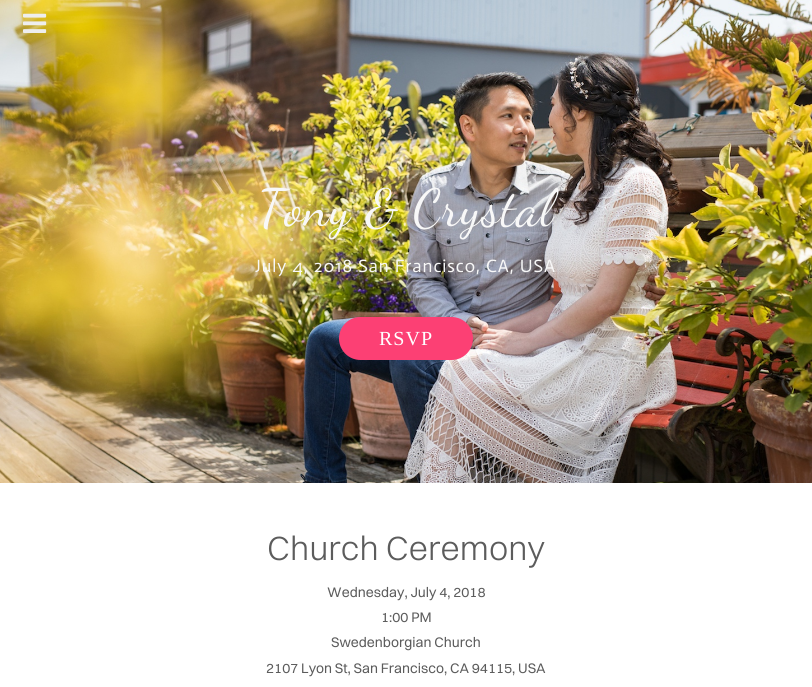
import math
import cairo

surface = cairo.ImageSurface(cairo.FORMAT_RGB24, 812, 687)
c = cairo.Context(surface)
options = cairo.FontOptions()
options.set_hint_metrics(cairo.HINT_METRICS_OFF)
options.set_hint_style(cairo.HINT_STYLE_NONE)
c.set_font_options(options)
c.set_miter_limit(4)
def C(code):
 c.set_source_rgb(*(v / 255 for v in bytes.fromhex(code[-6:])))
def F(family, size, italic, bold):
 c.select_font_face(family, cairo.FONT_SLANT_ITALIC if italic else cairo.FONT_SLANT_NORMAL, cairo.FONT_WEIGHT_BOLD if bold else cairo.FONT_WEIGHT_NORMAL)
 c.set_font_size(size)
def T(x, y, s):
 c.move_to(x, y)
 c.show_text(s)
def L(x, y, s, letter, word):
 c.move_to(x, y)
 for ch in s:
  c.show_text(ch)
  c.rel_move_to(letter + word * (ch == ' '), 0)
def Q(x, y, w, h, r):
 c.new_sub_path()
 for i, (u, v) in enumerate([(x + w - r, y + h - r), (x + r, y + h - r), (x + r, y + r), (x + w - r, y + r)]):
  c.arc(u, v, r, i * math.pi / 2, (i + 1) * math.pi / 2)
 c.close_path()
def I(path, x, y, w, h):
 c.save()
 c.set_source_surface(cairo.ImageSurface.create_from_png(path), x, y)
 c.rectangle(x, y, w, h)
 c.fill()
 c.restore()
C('ffffff')
c.paint()
I('1.png',0,0,812,483)
I('2.png',23,13,24,20)
F('Dancing Script',52,0,0)
C('f8f8f8')
L(258,225,'Tony & Crystal',1,0)
F('Actor',18,0,0)
L(255,272,'July 4, 2018 San Francisco, CA, USA',1,0)
C('fc4074')
Q(339,317,134,43,21.5)
c.fill()
F('Liberation Serif',20,0,0)
C('ffffff')
L(379,345,'RSVP',1,0)
F('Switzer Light',34,0,0)
C('5c5c5c')
T(267,560,'Church Ceremony')
F('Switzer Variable',14,0,0)
T(327,597,'Wednesday, July 4, 2018')
T(381,622,'1:00 PM')
T(331,647,'Swedenborgian Church')
T(266,673,'2107 Lyon St, San Francisco, CA 94115, USA')
surface.write_to_png('o.png')
